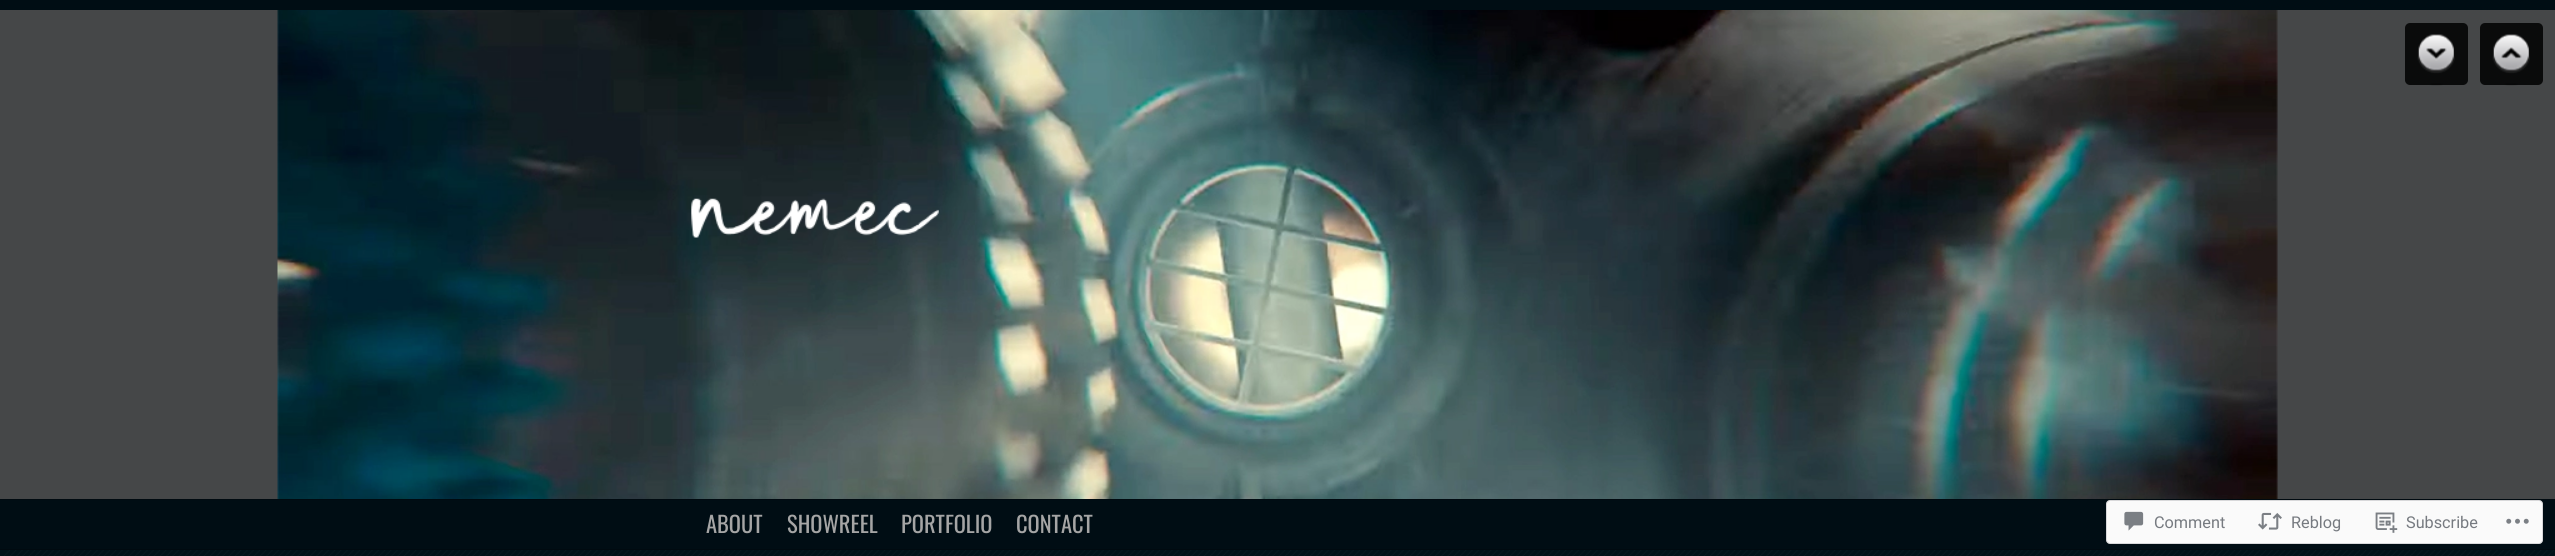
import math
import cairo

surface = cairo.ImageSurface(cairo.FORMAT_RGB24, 2555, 556)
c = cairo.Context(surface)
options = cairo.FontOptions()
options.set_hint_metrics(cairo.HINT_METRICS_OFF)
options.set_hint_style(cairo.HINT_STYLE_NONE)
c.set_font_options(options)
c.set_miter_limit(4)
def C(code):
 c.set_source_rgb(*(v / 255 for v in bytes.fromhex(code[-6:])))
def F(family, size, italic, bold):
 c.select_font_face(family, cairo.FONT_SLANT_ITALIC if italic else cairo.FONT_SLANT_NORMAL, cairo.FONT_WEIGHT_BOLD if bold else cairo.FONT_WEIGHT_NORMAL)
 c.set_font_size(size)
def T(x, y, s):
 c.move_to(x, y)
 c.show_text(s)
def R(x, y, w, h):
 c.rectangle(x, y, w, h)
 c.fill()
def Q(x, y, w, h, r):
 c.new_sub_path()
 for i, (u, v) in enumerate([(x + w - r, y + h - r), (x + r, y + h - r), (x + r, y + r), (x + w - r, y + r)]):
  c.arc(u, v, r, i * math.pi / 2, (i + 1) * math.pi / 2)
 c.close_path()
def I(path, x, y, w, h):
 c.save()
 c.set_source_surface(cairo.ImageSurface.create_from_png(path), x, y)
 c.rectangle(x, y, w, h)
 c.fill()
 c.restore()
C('001319')
c.paint()
I('1.png',4,550,2551,6)
C('000d14')
R(0,0,2555,10)
C('454748')
R(0,10,2555,489)
I('3.png',277,10,2001,489)
I('2.png',691,198,248,40)
C('0a0b0b')
Q(2405,23,63,62,5)
c.fill()
I('4.png',2417,34,38,52)
Q(2480,23,63,62,5)
c.fill()
I('5.png',2492,34,38,52)
C('000d14')
R(0,500,2555,49)
C('000a10')
R(0,499,2555,1)
R(0,549,2555,1)
F('Oswald',22.5,0,0)
C('a5a5a5')
T(706,533,'ABOUT')
T(787,533,'SHOWREEL')
T(901,533,'PORTFOLIO')
T(1016,533,'CONTACT')
C('fafafa')
Q(2106.5,500.5,436,43,3.5)
c.fill_preserve()
C('d8d8da')
c.set_line_width(1)
c.stroke()
I('6.png',2124,511,20,20)
F('Roboto',16.25,0,0)
C('767a80')
T(2154,528,'Comment')
I('7.png',2258,512,24,18)
T(2291,528,'Reblog')
I('8.png',2375,512,23,21)
T(2406,528,'Subscribe')
I('9.png',2506,518,23,6)
surface.write_to_png('o.png')
